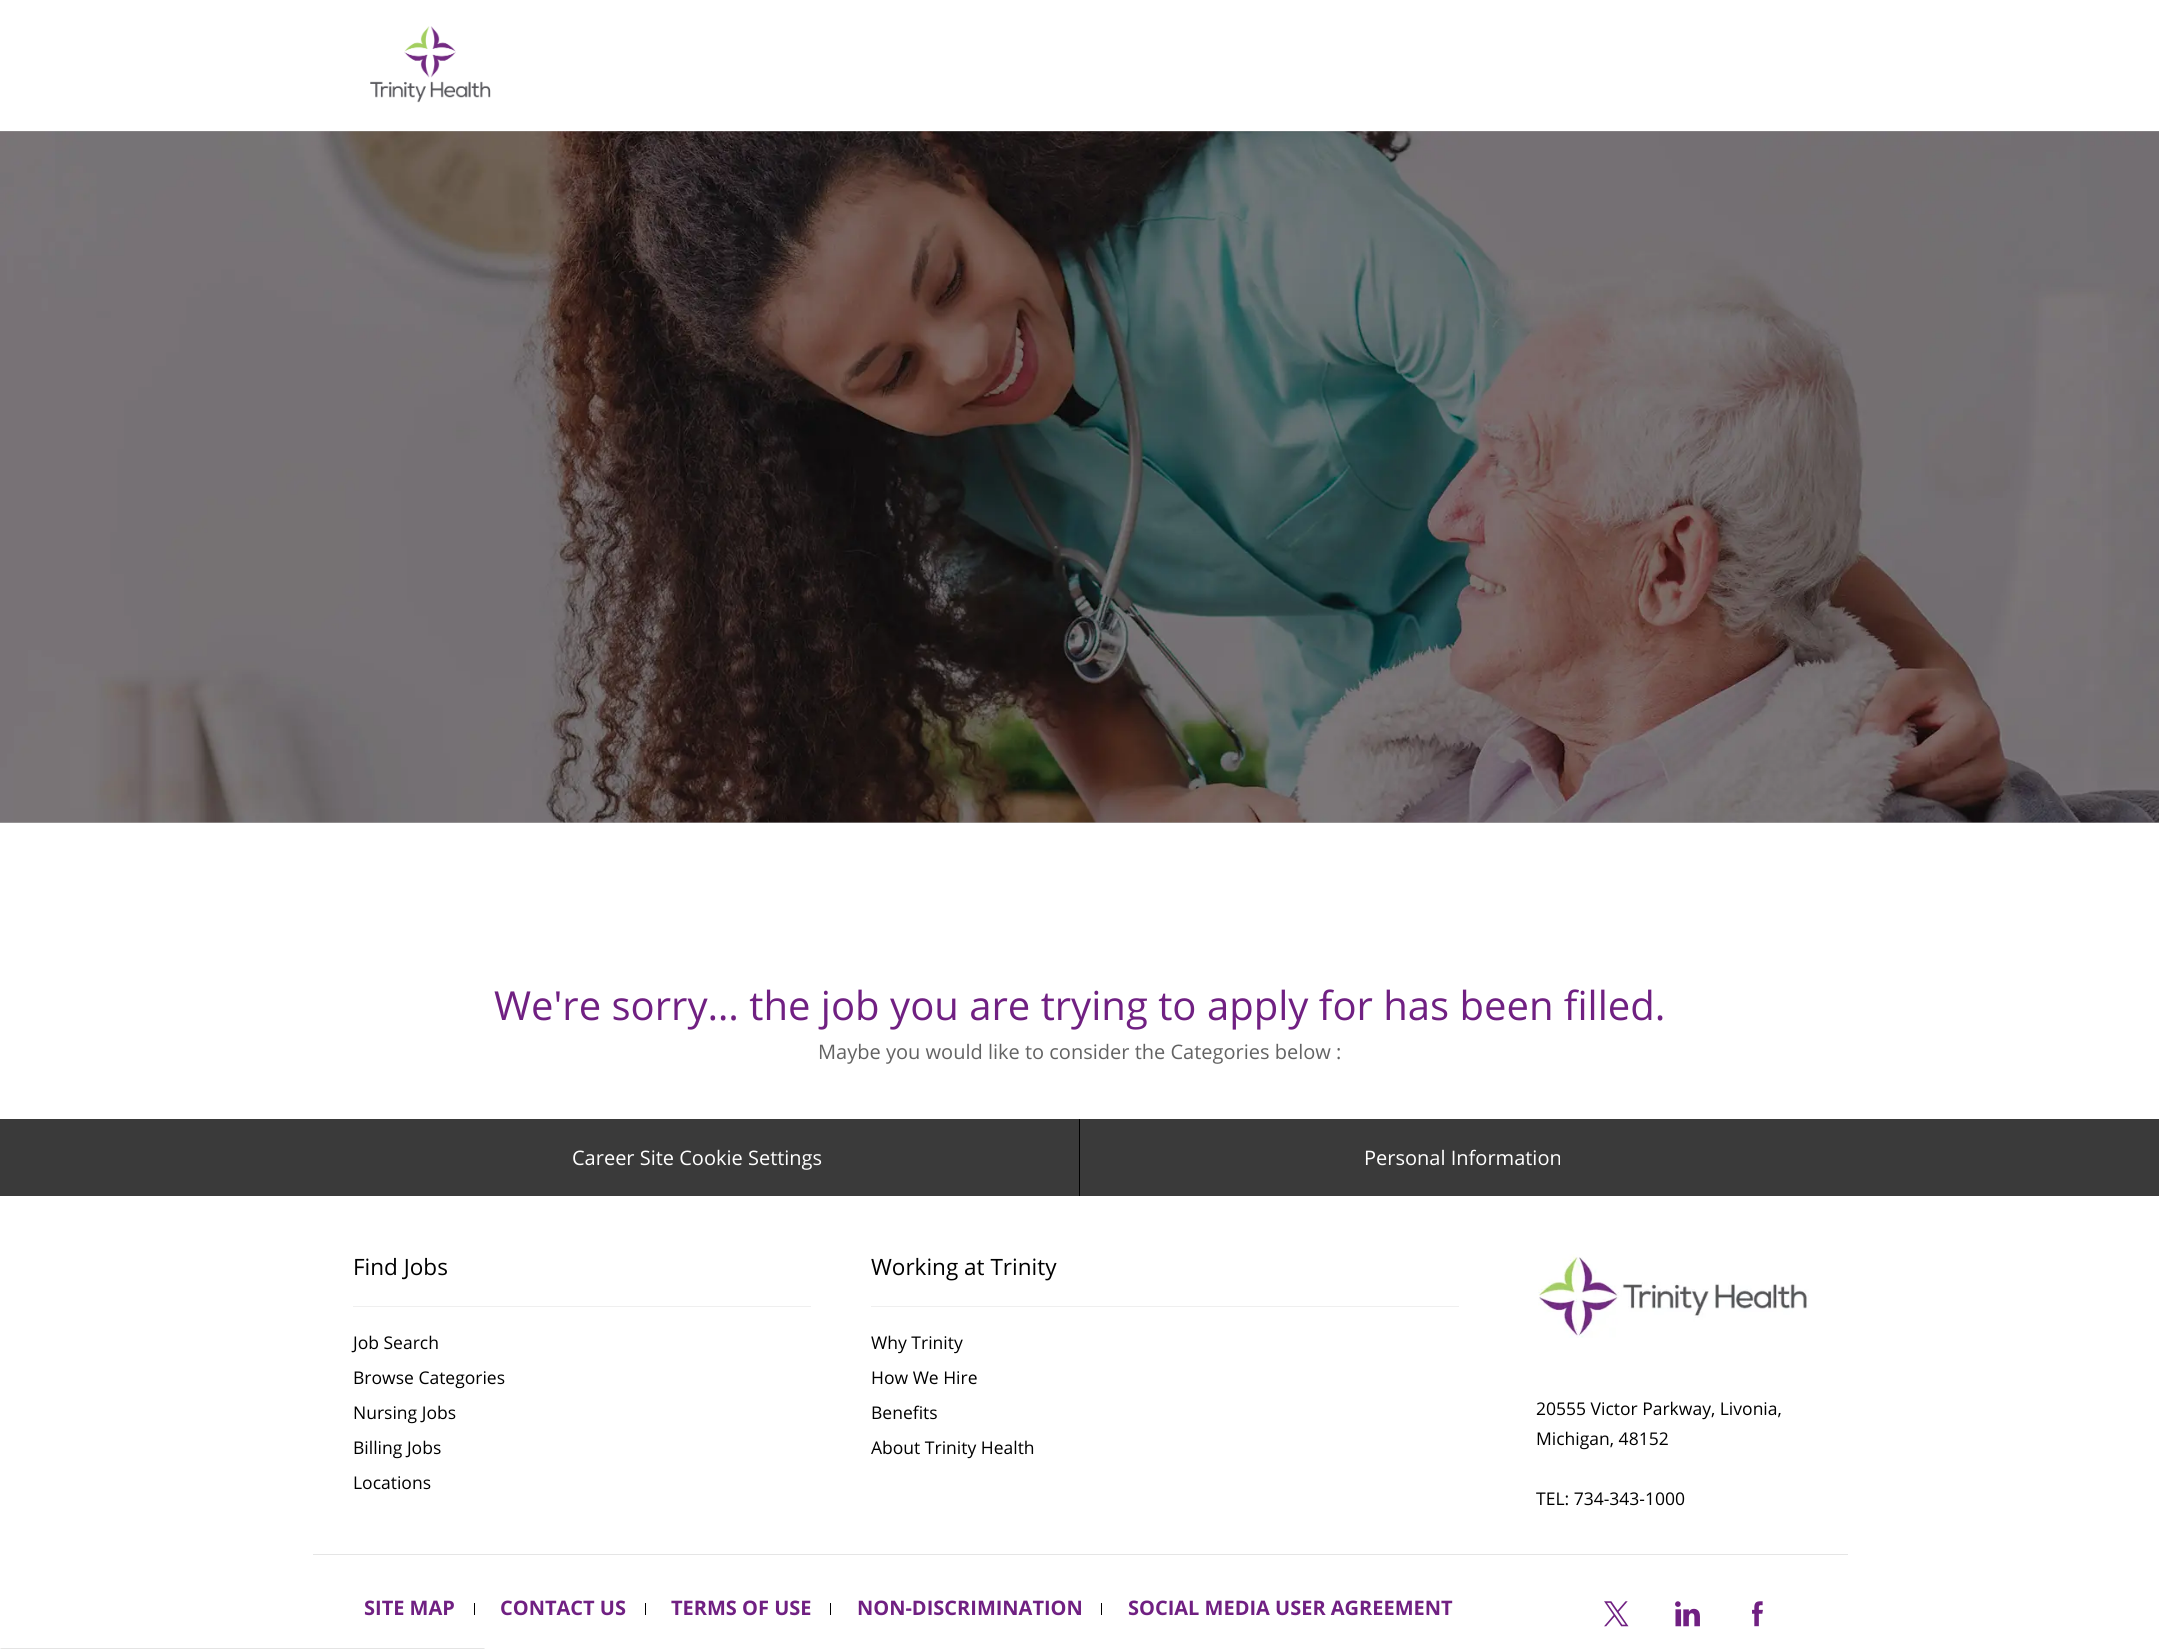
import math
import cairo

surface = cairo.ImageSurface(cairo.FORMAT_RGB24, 2159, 1649)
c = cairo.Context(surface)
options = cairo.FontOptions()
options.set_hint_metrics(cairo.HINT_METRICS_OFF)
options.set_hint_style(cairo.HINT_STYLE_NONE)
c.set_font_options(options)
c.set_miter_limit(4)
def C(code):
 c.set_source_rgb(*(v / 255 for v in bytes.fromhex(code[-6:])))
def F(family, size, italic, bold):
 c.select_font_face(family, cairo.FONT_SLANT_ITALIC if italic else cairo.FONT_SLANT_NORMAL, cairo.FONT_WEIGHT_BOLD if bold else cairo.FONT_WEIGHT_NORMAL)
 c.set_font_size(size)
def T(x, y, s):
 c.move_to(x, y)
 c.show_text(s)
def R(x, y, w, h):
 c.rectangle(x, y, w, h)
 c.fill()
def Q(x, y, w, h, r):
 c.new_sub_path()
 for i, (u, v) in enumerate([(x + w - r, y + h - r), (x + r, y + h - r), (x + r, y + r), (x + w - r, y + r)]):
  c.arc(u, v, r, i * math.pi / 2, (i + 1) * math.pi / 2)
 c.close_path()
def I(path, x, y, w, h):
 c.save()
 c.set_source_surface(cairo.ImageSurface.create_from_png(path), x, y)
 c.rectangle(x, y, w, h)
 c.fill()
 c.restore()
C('ffffff')
c.paint()
I('1.png',370,26,121,77)
C('b3b3b3')
R(0,131,2159,692)
I('2.png',0,131,2159,692)
F('Open Sans',40,0,0)
C('702082')
T(494,1020,'We\'re sorry… the job you are trying to apply for has been filled.')
F('Open Sans',20,0,0)
C('636363')
T(818,1059,'Maybe you would like to consider the Categories below :')
C('3a3a3a')
R(0,1119,2159,77)
C('000000')
R(1079,1119,1,77)
C('ffffff')
T(572,1165,'Career Site Cookie Settings')
T(1364,1165,'Personal Information')
C('efefef')
R(353,1306,458,1)
F('Open Sans',22.5,0,0)
C('000000')
T(353,1275,'Find Jobs')
F('Open Sans',17.5,0,0)
T(353,1349,'Job Search')
T(353,1384,'Browse Categories')
T(353,1419,'Nursing Jobs')
T(353,1454,'Billing Jobs')
T(353,1489,'Locations')
C('efefef')
R(871,1306,588,1)
F('Open Sans',22.5,0,0)
C('000000')
T(871,1275,'Working at Trinity')
F('Open Sans',17.5,0,0)
T(871,1349,'Why Trinity')
T(871,1384,'How We Hire')
T(871,1419,'Benefits')
T(871,1454,'About Trinity Health')
I('3.png',1538,1254,271,84)
T(1536,1415,'20555 Victor Parkway, Livonia,')
T(1536,1445,'Michigan, 48152')
T(1536,1505,'TEL: 734-343-1000')
C('e5e5e5')
R(313,1554,1535,1)
F('Open Sans',20,0,1)
C('702082')
T(364,1615,'SITE MAP')
C('000000')
R(474,1603,1,12)
C('702082')
T(500,1615,'CONTACT US')
C('000000')
R(645,1603,1,12)
C('702082')
T(671,1615,'TERMS OF USE')
C('000000')
R(830,1603,1,12)
C('702082')
T(857,1615,'NON-DISCRIMINATION')
C('000000')
R(1101,1603,1,12)
C('702082')
T(1128,1615,'SOCIAL MEDIA USER AGREEMENT')
I('4.png',1604,1601,25,26)
I('5.png',1675,1601,25,26)
I('6.png',1752,1601,11,26)
C('e4e4e4')
Q(0,1648,485,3,1.5)
c.fill()
surface.write_to_png('o.png')
